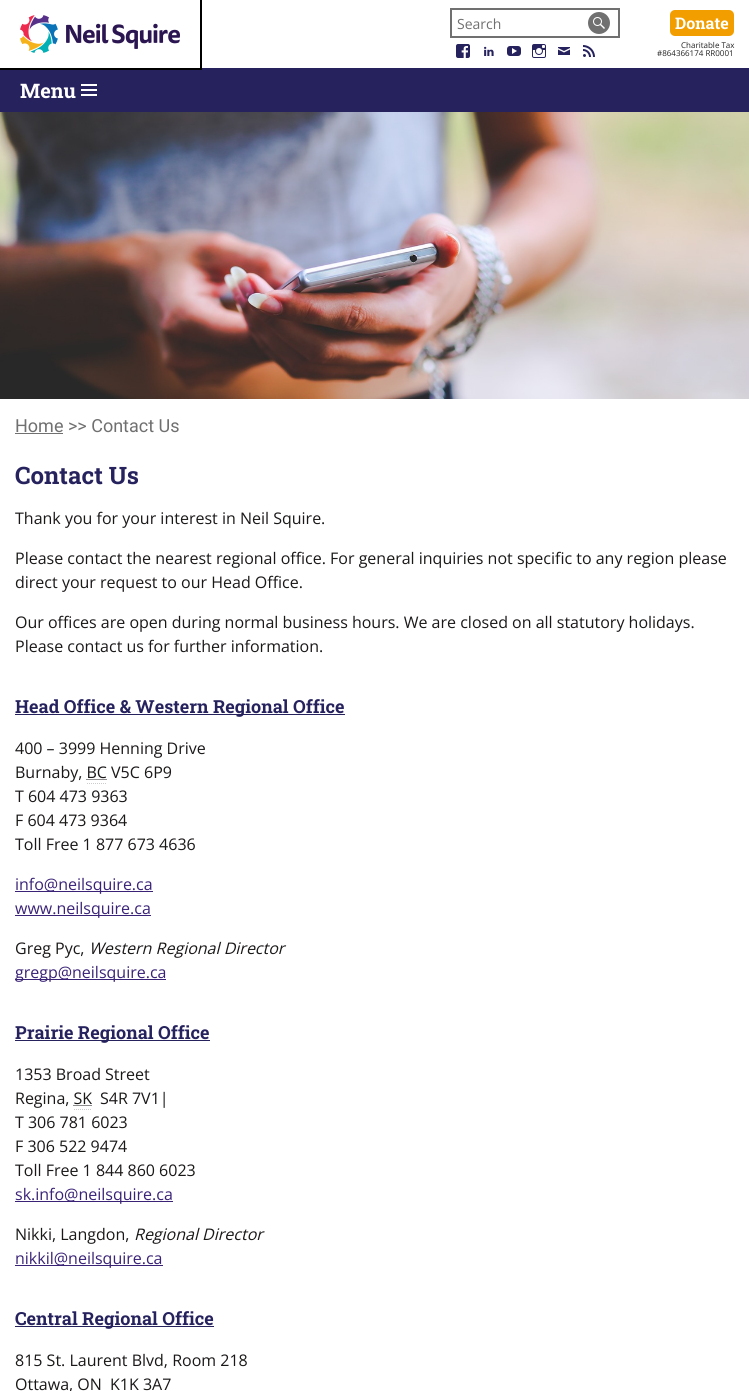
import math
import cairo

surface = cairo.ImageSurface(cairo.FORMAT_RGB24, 749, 1391)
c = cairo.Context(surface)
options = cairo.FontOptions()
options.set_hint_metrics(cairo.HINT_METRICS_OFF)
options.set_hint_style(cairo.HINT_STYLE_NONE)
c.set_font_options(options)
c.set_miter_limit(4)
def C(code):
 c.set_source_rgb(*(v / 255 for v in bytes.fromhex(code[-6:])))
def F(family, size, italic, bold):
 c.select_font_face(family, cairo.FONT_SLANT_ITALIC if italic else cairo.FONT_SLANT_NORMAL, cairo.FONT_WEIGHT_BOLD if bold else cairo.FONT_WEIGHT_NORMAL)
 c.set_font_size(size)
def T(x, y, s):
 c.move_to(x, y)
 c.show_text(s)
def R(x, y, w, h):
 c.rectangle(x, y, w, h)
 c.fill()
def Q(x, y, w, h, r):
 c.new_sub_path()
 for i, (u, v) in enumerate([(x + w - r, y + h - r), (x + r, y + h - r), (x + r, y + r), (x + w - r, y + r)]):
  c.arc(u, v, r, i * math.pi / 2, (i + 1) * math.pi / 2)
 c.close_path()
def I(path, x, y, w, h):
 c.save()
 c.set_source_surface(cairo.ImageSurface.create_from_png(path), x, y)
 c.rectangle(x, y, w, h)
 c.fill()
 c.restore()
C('ffffff')
c.paint()
I('1.png',20,15,160,38)
C('26225e')
R(0,68,749,44)
c.rectangle(-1,-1,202,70)
C('000000')
c.stroke()
c.rectangle(451,9,168,28)
C('707070')
c.stroke()
F('Open Sans',14,0,0)
T(457,29,'Search')
c.new_path()
c.arc(599,23,11,0,2 * math.pi)
c.fill()
I('2.png',593,17,12,12)
I('3.png',456,44,14,14)
I('4.png',484,46,10,10)
I('5.png',507,46,14,10)
I('6.png',532,44,14,14)
I('7.png',558,47,12,8)
I('8.png',583,45,12,12)
C('f29e00')
Q(670,10,64,26,5)
c.fill()
F('Roboto Slab',16,0,1)
C('ffffff')
T(675,29,'Donate')
F('Open Sans',8,0,0)
C('222222')
T(681,48,'Charitable Tax')
T(657,56,'#864366174 RR0001')
F('Roboto Slab',20,0,1)
C('ffffff')
T(20,98,'Menu')
I('9.png',81,84,16,12)
I('10.png',0,112,749,287)
F('Roboto',18,0,0)
C('707070')
T(15,432,'Home >> Contact Us')
R(15,433,48,1)
F('Roboto Slab',24,0,1)
C('26225e')
T(15,484,'Contact Us')
F('Open Sans',16,0,0)
C('1b1818')
T(15,524,'Thank you for your interest in Neil Squire.')
T(15,564,'Please contact the nearest regional office. For general inquiries not specific to any region please')
T(15,588,'direct your request to our Head Office.')
T(15,628,'Our offices are open during normal business hours. We are closed on all statutory holidays.')
T(15,652,'Please contact us for further information.')
C('26225e')
R(15,714,330,1)
F('Roboto Slab',18,0,1)
T(15,713,'Head Office & Western Regional Office')
F('Open Sans',16,0,0)
C('1b1818')
T(15,754,'400 – 3999 Henning Drive')
T(15,778,'Burnaby, BC V5C 6P9')
c.new_path()
c.move_to(86.5,779.5)
c.line_to(107,779.5)
c.set_line_width(1)
c.set_dash([1,1])
c.stroke()
c.new_path()
c.move_to(87,783.5)
c.line_to(107,783.5)
C('cccccc')
c.stroke()
C('1b1818')
T(15,802,'T 604 473 9363')
T(15,826,'F 604 473 9364')
T(15,850,'Toll Free 1 877 673 4636')
C('3a2377')
R(15,891,138,1)
T(15,890,'info@neilsquire.ca')
R(15,915,136,1)
T(15,914,'www.neilsquire.ca')
C('1b1818')
T(15,954,'Greg Pyc,')
F('Open Sans',16,1,0)
T(89,954,'Western Regional Director')
C('3a2377')
R(15,979,151,1)
F('Open Sans',16,0,0)
T(15,978,'gregp@neilsquire.ca')
C('26225e')
R(15,1040,195,1)
F('Roboto Slab',18,0,1)
T(15,1039,'Prairie Regional Office')
F('Open Sans',16,0,0)
C('1b1818')
T(15,1080,'1353 Broad Street')
T(15,1104,'Regina, SK')
T(100,1104,'S4R 7V1|')
c.new_path()
c.move_to(73.5,1105.5)
c.line_to(92,1105.5)
c.stroke()
c.new_path()
c.move_to(74,1109.5)
c.line_to(92,1109.5)
C('cccccc')
c.stroke()
C('1b1818')
T(15,1128,'T 306 781 6023')
T(15,1152,'F 306 522 9474')
T(15,1176,'Toll Free 1 844 860 6023')
C('3a2377')
R(15,1201,158,1)
T(15,1200,'sk.info@neilsquire.ca')
C('1b1818')
T(15,1240,'Nikki, Langdon,')
F('Open Sans',16,1,0)
T(134,1240,'Regional Director')
C('3a2377')
R(15,1265,148,1)
F('Open Sans',16,0,0)
T(15,1264,'nikkil@neilsquire.ca')
C('26225e')
R(15,1326,199,1)
F('Roboto Slab',18,0,1)
T(15,1325,'Central Regional Office')
F('Open Sans',16,0,0)
C('1b1818')
T(15,1366,'815 St. Laurent Blvd, Room 218')
T(15,1390,'Ottawa, ON')
T(110,1390,'K1K 3A7')
surface.write_to_png('o.png')
